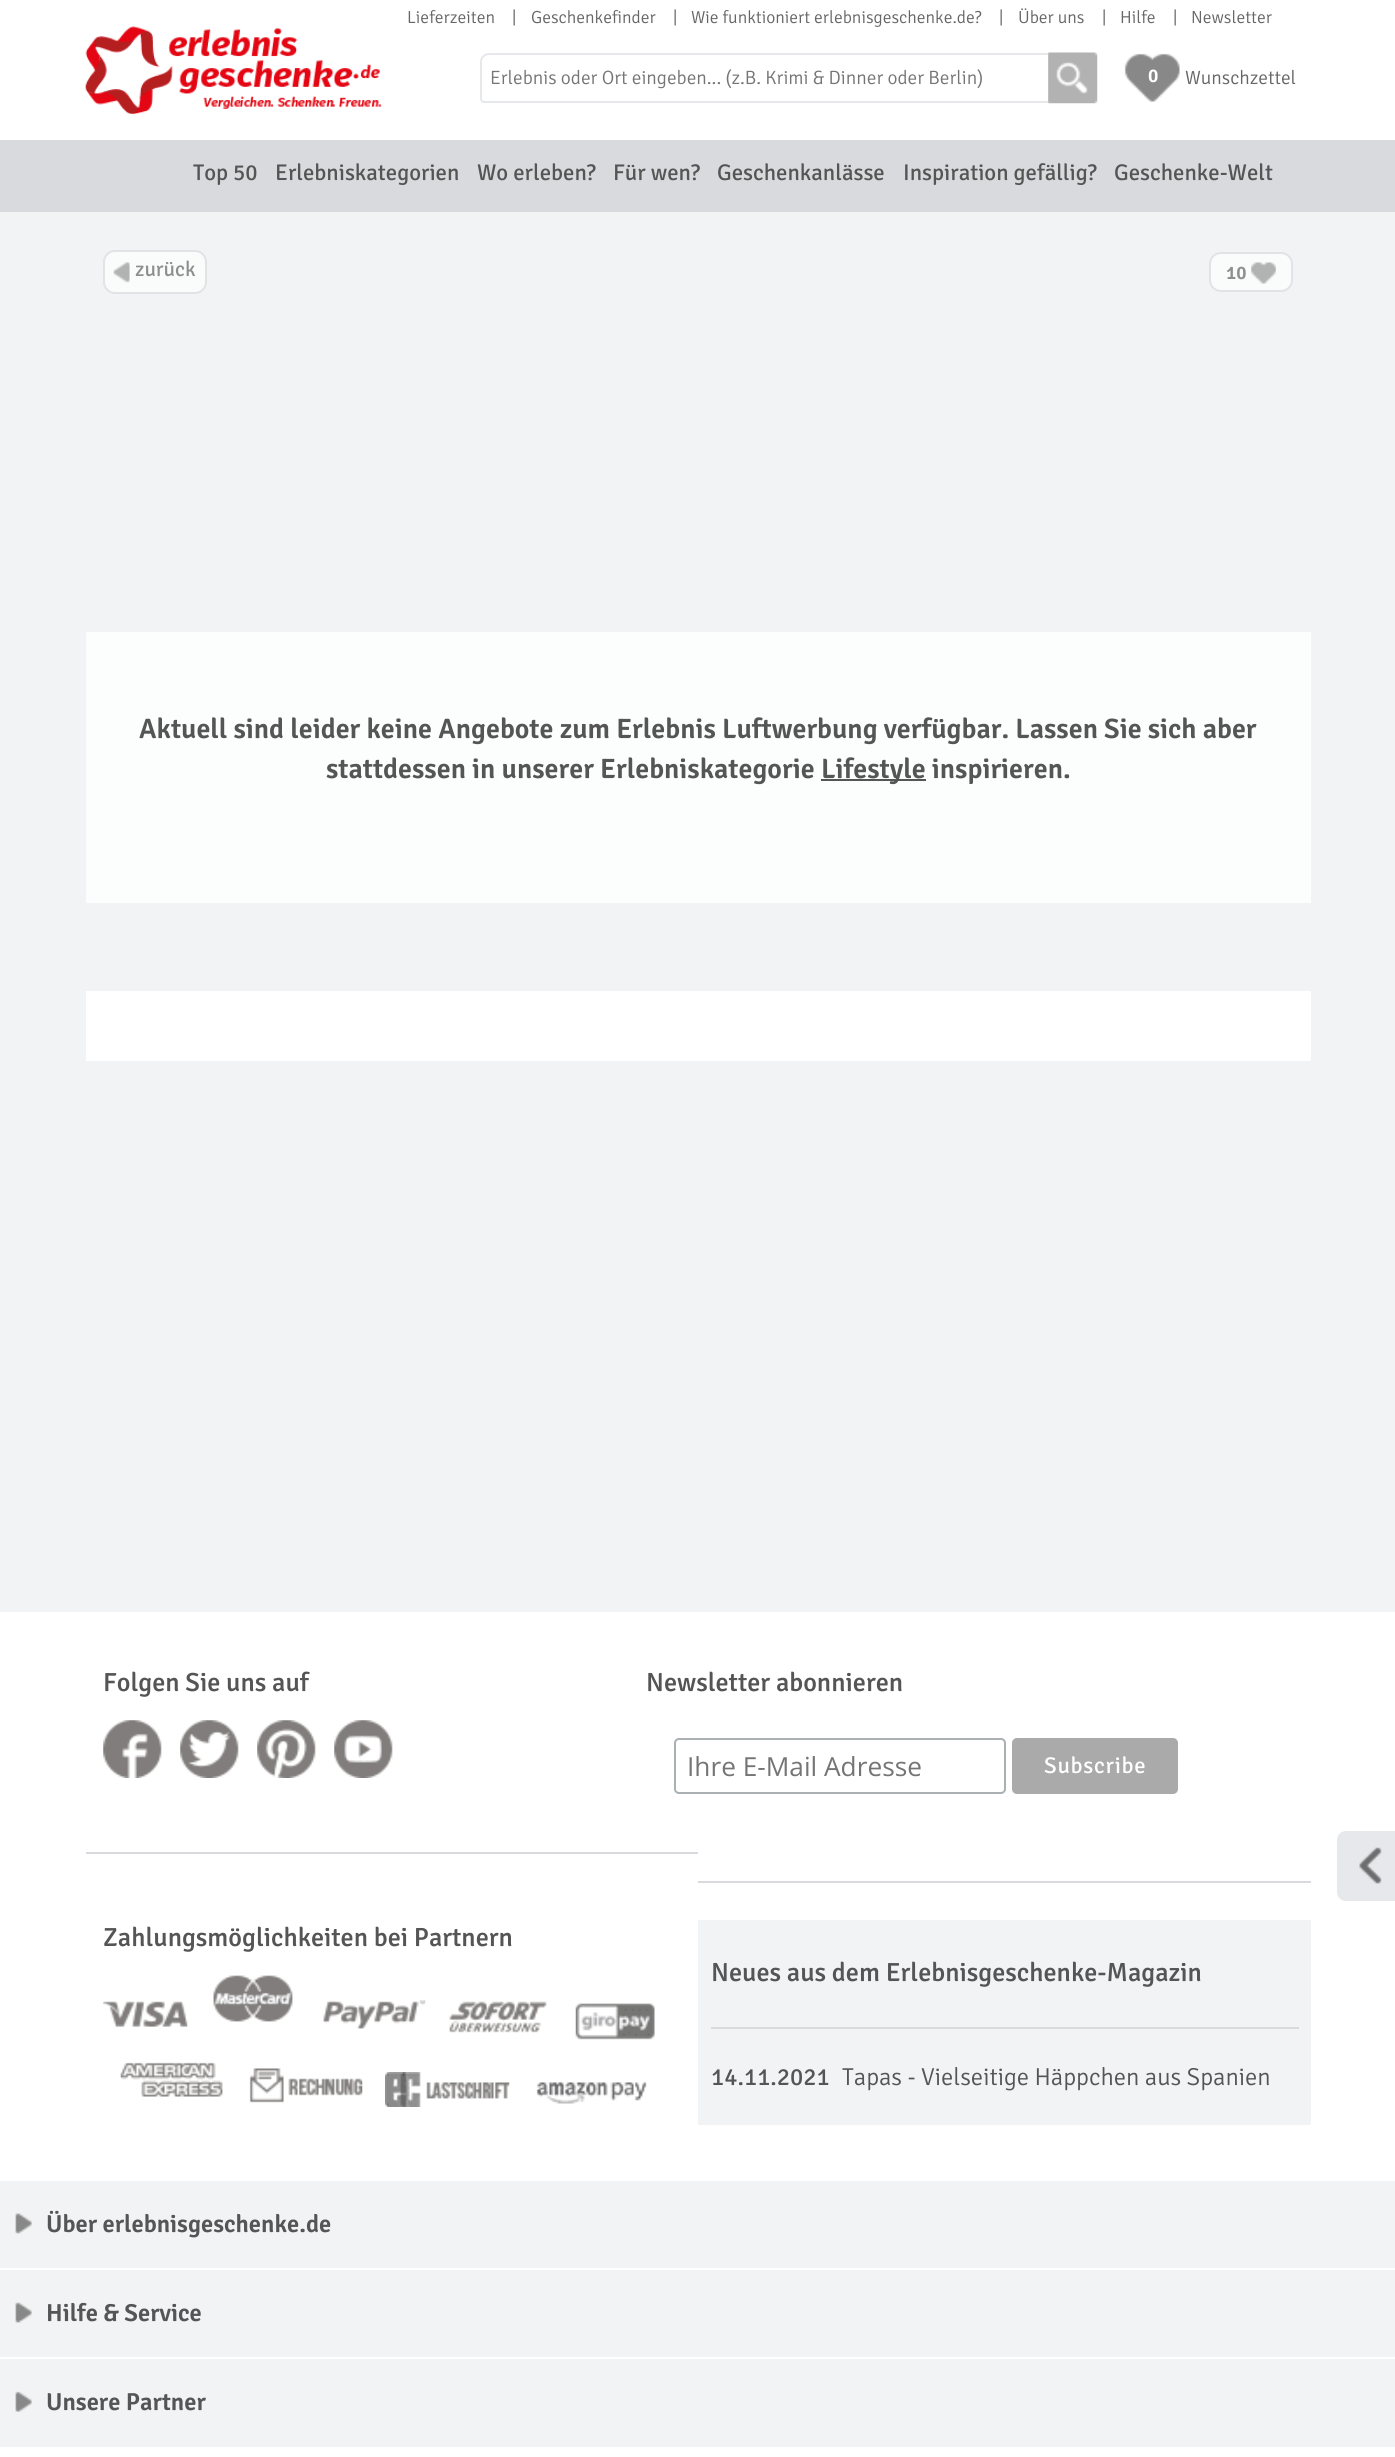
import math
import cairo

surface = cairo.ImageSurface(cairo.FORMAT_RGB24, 1395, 2457)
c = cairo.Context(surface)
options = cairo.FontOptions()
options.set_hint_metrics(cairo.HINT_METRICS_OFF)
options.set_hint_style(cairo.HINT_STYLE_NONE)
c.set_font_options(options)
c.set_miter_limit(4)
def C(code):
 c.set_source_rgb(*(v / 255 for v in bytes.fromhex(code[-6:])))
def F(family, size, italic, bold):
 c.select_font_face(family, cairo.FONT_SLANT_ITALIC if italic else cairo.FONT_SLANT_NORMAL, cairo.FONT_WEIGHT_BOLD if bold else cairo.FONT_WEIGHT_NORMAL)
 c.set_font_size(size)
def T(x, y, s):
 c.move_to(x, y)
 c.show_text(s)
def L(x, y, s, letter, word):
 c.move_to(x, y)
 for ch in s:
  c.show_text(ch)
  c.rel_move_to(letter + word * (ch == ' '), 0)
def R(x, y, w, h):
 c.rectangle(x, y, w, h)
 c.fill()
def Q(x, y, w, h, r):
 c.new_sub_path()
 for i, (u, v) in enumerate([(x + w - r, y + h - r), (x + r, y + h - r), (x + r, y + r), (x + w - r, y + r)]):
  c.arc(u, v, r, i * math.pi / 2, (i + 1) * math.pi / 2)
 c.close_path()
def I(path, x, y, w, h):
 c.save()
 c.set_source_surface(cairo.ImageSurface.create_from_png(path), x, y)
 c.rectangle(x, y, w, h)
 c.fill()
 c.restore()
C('f2f3f5')
c.paint()
C('ffffff')
R(0,0,1395,140)
F('Signika Light',17.5,0,0)
C('666666')
T(407,23,'Lieferzeiten')
T(512,23,'|')
T(531,23,'Geschenkefinder')
T(673,23,'|')
T(691,23,'Wie funktioniert erlebnisgeschenke.de?')
T(999,23,'|')
T(1018,23,'Über uns')
T(1102,23,'|')
T(1120,23,'Hilfe')
T(1173,23,'|')
T(1191,23,'Newsletter')
I('1.png',85,26,297,88)
c.new_path()
c.move_to(489,54)
c.line_to(1049,54)
c.line_to(1049,102)
c.line_to(484,102)
c.curve_to(482.5,102,481,100.5,481,99)
c.line_to(481,62)
c.curve_to(481,57.5,484.5,54,489,54)
c.close_path()
C('e6e8ec')
c.stroke()
F('Signika Light',19.25,0,0)
C('757575')
T(490,84,'Erlebnis oder Ort eingeben... (z.B. Krimi & Dinner oder Berlin)')
I('2.png',1048,52,50,52)
I('3.png',1124,53,56,49)
F('Signika SemiBold',19.25,0,0)
C('ffffff')
T(1148,82,'0')
F('Signika Light',19.25,0,0)
C('666666')
T(1185,84,'Wunschzettel')
C('d8dadd')
R(0,140,1395,72)
F('Signika',22.75,0,0)
C('555555')
T(193,180,'Top 50')
T(275,180,'Erlebniskategorien')
T(477,180,'Wo erleben?')
T(613,180,'Für wen?')
T(717,180,'Geschenkanlässe')
T(903,180,'Inspiration gefällig?')
T(1114,180,'Geschenke-Welt')
C('fafbfb')
Q(104,251,102,42,11)
c.fill_preserve()
C('e1e3e6')
c.stroke()
I('4.png',113,262,17,21)
F('Signika',21,0,0)
C('8e8e8f')
T(135,276,'zurück')
C('fafbfb')
Q(1210,253,82,38,11)
c.fill_preserve()
C('e1e3e6')
c.stroke()
F('Signika SemiBold',19,0,0)
C('8e8e8f')
T(1226,279,'10')
I('5.png',1251,262,25,22)
C('fcfdfd')
R(86,632,1225,271)
F('Signika SemiBold',28,0,0)
C('555555')
T(139,738,'Aktuell sind leider keine Angebote zum Erlebnis Luftwerbung verfügbar. Lassen Sie sich aber')
T(326,778,'stattdessen in unserer Erlebniskategorie')
R(821,779,105,2)
T(821,778,'Lifestyle inspirieren.')
C('ffffff')
R(86,991,1225,70)
R(0,1612,1395,845)
C('d8dadd')
R(86,1852,612,2)
F('Signika Medium',26.25,0,0)
C('555555')
T(103,1691,'Folgen Sie uns auf')
I('6.png',103,1720,59,58)
I('7.png',180,1720,59,58)
I('8.png',257,1720,59,58)
I('9.png',334,1720,59,58)
C('d8dadd')
R(698,1881,613,2)
C('555555')
T(646,1691,'Newsletter abonnieren')
Q(675,1739,330,54,4)
C('abb0b2')
c.stroke()
F('Open Sans',26.25,0,0)
C('757575')
T(687,1776,'Ihre E-Mail Adresse')
C('aaaaaa')
Q(1012,1738,166,56,5)
c.fill()
F('Signika',22.75,0,0)
C('ffffff')
L(1044,1773,'Subscribe',.75,0)
F('Signika Medium',26.25,0,0)
C('555555')
T(103,1946,'Zahlungsmöglichkeiten bei Partnern')
I('10.png',103,2001,85,26)
I('11.png',213,1975,80,47)
I('12.png',323,2000,103,29)
I('13.png',449,2001,98,32)
I('14.png',575,2003,80,37)
I('15.png',120,2062,103,35)
I('16.png',249,2068,114,35)
I('17.png',385,2072,125,35)
I('18.png',536,2082,111,22)
C('f2f3f5')
R(698,1920,613,205)
C('d8dadd')
R(711,2027,588,2)
C('555555')
T(711,1981,'Neues aus dem Erlebnisgeschenke-Magazin')
F('Signika',24.5,0,0)
T(711,2085,'14.11.2021')
F('Signika Light',24.5,0,0)
T(842,2085,'Tapas - Vielseitige Häppchen aus Spanien')
C('f2f3f5')
R(0,2181,1395,87)
I('19.png',15,2213,17,21)
F('Signika SemiBold',24.5,0,0)
C('555555')
T(46,2232,'Über erlebnisgeschenke.de')
C('f2f3f5')
R(0,2270,1395,87)
I('20.png',15,2302,17,21)
C('555555')
T(46,2321,'Hilfe & Service')
C('f2f3f5')
R(0,2359,1395,88)
I('21.png',15,2391,17,21)
C('555555')
T(46,2410,'Unsere Partner')
C('e6e8ec')
c.new_path()
c.move_to(1346,1831)
c.line_to(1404,1831)
c.line_to(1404,1901)
c.line_to(1346,1901)
c.curve_to(1341,1901,1337,1897,1337,1892)
c.line_to(1337,1840)
c.curve_to(1337,1835,1341,1831,1346,1831)
c.close_path()
c.fill()
I('22.png',1359,1847,23,37)
surface.write_to_png('o.png')
